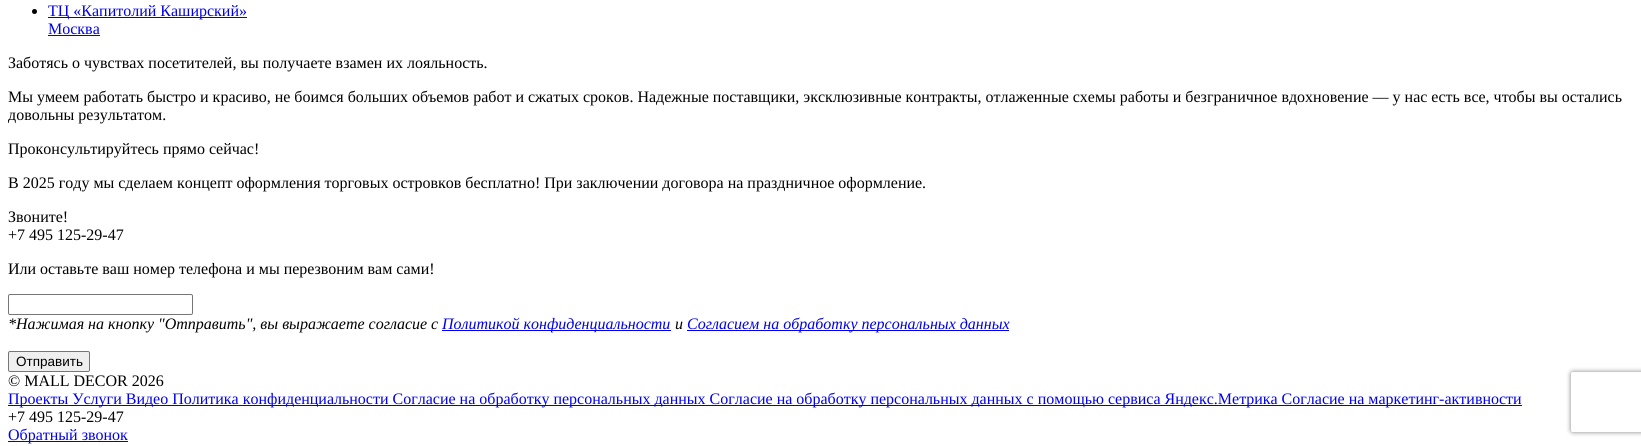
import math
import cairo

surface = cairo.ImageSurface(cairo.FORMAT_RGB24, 1641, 446)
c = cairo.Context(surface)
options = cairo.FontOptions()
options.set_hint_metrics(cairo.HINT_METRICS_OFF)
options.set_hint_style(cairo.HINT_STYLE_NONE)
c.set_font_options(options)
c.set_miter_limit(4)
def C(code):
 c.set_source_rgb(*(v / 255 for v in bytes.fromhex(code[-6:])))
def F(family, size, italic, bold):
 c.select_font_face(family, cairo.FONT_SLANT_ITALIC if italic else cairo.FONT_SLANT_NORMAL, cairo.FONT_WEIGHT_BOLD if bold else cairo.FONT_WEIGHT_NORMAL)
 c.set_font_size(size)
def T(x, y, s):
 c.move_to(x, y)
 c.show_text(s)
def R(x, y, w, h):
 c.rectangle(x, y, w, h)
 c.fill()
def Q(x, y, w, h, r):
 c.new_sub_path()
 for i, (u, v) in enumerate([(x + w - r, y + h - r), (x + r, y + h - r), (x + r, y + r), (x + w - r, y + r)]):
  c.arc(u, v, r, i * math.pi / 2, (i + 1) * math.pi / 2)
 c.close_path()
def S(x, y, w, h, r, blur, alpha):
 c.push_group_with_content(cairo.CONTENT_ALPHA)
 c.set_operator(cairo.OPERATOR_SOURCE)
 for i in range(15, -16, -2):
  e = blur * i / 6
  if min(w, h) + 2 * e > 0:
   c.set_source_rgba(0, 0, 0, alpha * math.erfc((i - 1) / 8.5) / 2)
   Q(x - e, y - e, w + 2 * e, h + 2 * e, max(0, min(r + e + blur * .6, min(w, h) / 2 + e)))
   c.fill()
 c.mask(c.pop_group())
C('ffffff')
c.paint()
C('000000')
c.arc(34.5,11.5,2.5,0,2 * math.pi)
c.fill()
C('0000ee')
R(48,17,199,1)
F('Liberation Serif',16,0,0)
T(48,16,'ТЦ «Капитолий Каширский»')
T(48,34,'Москва')
R(48,35,52,1)
C('000000')
T(8,68,'Заботясь о чувствах посетителей, вы получаете взамен их лояльность.')
T(8,102,'Мы умеем работать быстро и красиво, не боимся больших объемов работ и сжатых сроков. Надежные поставщики, эксклюзивные контракты, отлаженные схемы работы и безграничное вдохновение — у нас есть все, чтобы вы остались')
T(8,120,'довольны результатом.')
T(8,154,'Проконсультируйтесь прямо сейчас!')
T(8,188,'В 2025 году мы сделаем концепт оформления торговых островков бесплатно! При заключении договора на праздничное оформление.')
T(8,222,'Звоните!')
T(8,240,'+7 495 125-29-47')
T(8,274,'Или оставьте ваш номер телефона и мы перезвоним вам сами!')
Q(8.5,294.5,184,20,1.5)
C('767676')
c.set_line_width(1)
c.stroke()
F('Liberation Serif',16,1,0)
C('000000')
T(8,329,'*Нажимая на кнопку "Отправить", вы выражаете согласие с')
C('0000ee')
R(442,330,229,1)
T(442,329,'Политикой конфиденциальности')
C('000000')
T(675,329,'и')
C('0000ee')
R(687,330,322,1)
T(687,329,'Согласием на обработку персональных данных')
C('efefef')
Q(8.5,351.5,81,20,1.5)
c.fill_preserve()
C('767676')
c.stroke()
F('Liberation Sans',13.5,0,0)
C('000000')
T(16,366,'Отправить')
F('Liberation Serif',16,0,0)
T(8,386,'© MALL DECOR 2026')
C('0000ee')
R(8,405,1514,1)
T(8,404,'Проекты Услуги Видео Политика конфиденциальности Согласие на обработку персональных данных Согласие на обработку персональных данных с помощью сервиса Яндекс.Метрика Согласие на маркетинг-активности')
C('000000')
T(8,422,'+7 495 125-29-47')
C('0000ee')
R(8,441,120,1)
T(8,440,'Обратный звонок')
c.save()
c.set_fill_rule(cairo.FILL_RULE_EVEN_ODD)
c.new_path()
c.move_to(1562,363)
c.line_to(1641,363)
c.line_to(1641,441)
c.line_to(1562,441)
c.close_path()
c.move_to(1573,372)
c.line_to(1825,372)
c.curve_to(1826,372,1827,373,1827,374)
c.line_to(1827,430)
c.curve_to(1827,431,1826,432,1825,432)
c.line_to(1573,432)
c.curve_to(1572,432,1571,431,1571,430)
c.line_to(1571,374)
c.curve_to(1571,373,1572,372,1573,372)
c.close_path()
c.clip()
C('808080')
S(1571,372,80,60,2,2.5,1)
c.restore()
surface.write_to_png('o.png')
